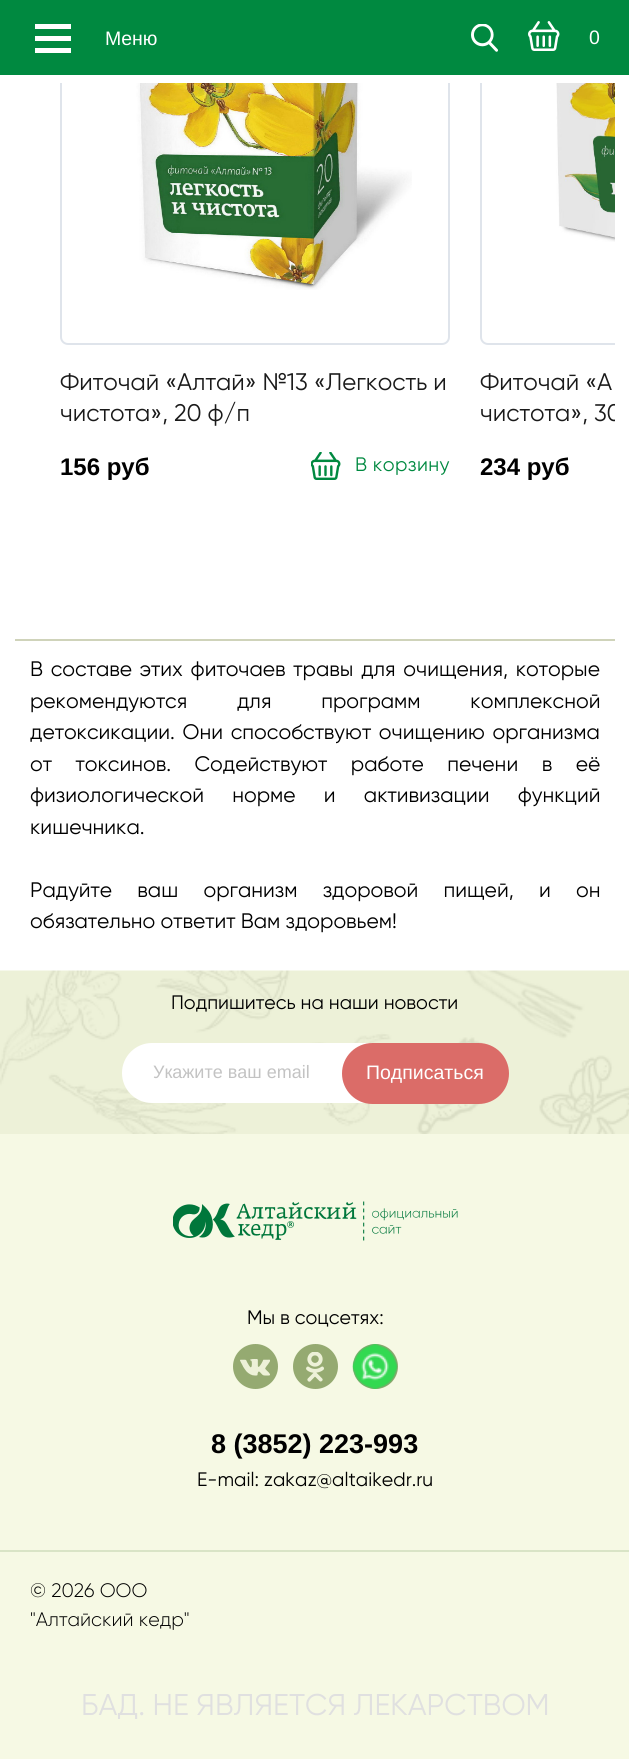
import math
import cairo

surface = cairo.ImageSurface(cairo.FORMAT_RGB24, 629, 1759)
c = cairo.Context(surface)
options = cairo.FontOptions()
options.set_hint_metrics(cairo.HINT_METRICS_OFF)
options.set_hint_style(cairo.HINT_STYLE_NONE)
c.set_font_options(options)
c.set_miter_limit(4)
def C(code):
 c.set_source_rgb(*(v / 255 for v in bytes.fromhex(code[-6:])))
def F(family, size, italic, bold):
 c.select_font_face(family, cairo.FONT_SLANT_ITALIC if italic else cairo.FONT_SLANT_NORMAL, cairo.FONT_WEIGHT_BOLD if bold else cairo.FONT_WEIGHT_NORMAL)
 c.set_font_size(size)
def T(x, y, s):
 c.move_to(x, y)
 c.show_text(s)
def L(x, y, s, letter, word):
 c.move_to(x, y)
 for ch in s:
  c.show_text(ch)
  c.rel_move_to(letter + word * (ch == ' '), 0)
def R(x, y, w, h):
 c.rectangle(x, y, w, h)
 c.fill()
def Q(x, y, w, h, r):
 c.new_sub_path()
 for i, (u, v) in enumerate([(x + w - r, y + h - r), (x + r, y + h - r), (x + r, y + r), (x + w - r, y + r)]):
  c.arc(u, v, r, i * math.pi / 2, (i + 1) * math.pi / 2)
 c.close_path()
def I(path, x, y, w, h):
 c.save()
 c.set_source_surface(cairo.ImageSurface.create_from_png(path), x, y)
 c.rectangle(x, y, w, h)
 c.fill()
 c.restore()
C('ffffff')
c.paint()
Q(61,-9,388,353,7)
C('dfe4eb')
c.stroke()
c.save()
c.rectangle(38,0,577,624)
c.clip()
Q(481,-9,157,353,7)
c.stroke()
c.restore()
C('008940')
R(0,0,629,75)
C('ffffff')
R(35,36,36,5)
R(35,24,36,5)
R(35,48,36,5)
F('Liberation Sans',19.5,0,0)
T(105,45,'Меню')
I('1.png',471,24,27,28)
I('2.png',528,21,32,30)
T(589,44,'0')
R(60,75,422,8)
I('3.png',136,83,276,207)
F('Gilroy',24,0,0)
C('1a1a1a')
T(60,390,'Фиточай «Алтай» №13 «Легкость и')
T(60,421,'чистота», 20 ф/п')
F('Liberation Sans',24,0,1)
C('000000')
T(60,475,'156 руб')
I('4.png',311,452,30,28)
F('Gilroy',19.5,0,0)
C('008940')
L(355,471,'В корзину',.4,0)
I('5.png',555,83,60,159)
F('Gilroy',24,0,0)
C('1a1a1a')
T(480,390,'Фиточай «А')
c.save()
c.rectangle(38,0,577,624)
c.clip()
T(480,421,'чистота», 30')
c.restore()
F('Liberation Sans',24,0,1)
C('000000')
T(480,475,'234 руб')
C('cfd3ba')
R(15,639,600,2)
F('Gilroy',21,0,0)
C('000000')
L(30,676,'В составе этих фиточаев травы для очищения, которые',0,2.5)
L(30,708,'рекомендуются для программ комплексной',0,44.5)
L(30,739,'детоксикации. Они способствуют очищению организма',0,2.5)
L(30,771,'от токсинов. Содействуют работе печени в её',0,18.25)
L(30,802,'физиологической норме и активизации функций',0,23)
T(30,834,'кишечника.')
L(30,897,'Радуйте ваш организм здоровой пищей, и он',0,20)
T(30,928,'обязательно ответит Вам здоровьем!')
I('6.png',0,970,629,164)
F('Gilroy',19.5,0,0)
T(171,1009,'Подпишитесь на наши новости')
C('ffffff')
Q(123,1044,278,58,29)
c.fill_preserve()
c.stroke()
F('Liberation Sans',18,0,0)
C('c3c3c3')
T(153,1078,'Укажите ваш email')
C('db6c68')
Q(343,1044,165,59,29.5)
c.fill_preserve()
c.stroke()
F('Liberation Sans',19.5,0,0)
C('ffffff')
T(366,1079,'Подписаться')
C('f6f9e4')
R(0,1134,629,416)
I('7.png',173,1201,285,40)
F('Gilroy',19.5,0,0)
C('000000')
T(247,1324,'Мы в соцсетях:')
C('95aa71')
c.new_path()
c.arc(255.5,1366.5,22.5,0,2 * math.pi)
c.fill()
I('8.png',240,1359,30,17)
c.arc(315.5,1366.5,22.5,0,2 * math.pi)
c.fill()
I('9.png',306,1352,18,30)
c.arc(375.5,1366.5,22.5,0,2 * math.pi)
c.fill()
I('10.png',352,1344,46,45)
F('Liberation Sans',27,0,1)
C('000000')
T(211,1453,'8 (3852) 223-993')
F('Gilroy',19.5,0,0)
T(197,1486,'E-mail: zakaz@altaikedr.ru')
C('f6f9e4')
R(0,1552,629,207)
C('d9e4c6')
R(0,1550,629,2)
F('Gilroy Light',19.5,0,0)
C('000000')
T(30,1597,'© 2026 ООО')
T(30,1626,'"Алтайский кедр"')
F('Gilroy',30,0,0)
C('e0e0e0')
T(81,1715,'БАД. НЕ ЯВЛЯЕТСЯ ЛЕКАРСТВОМ')
surface.write_to_png('o.png')
